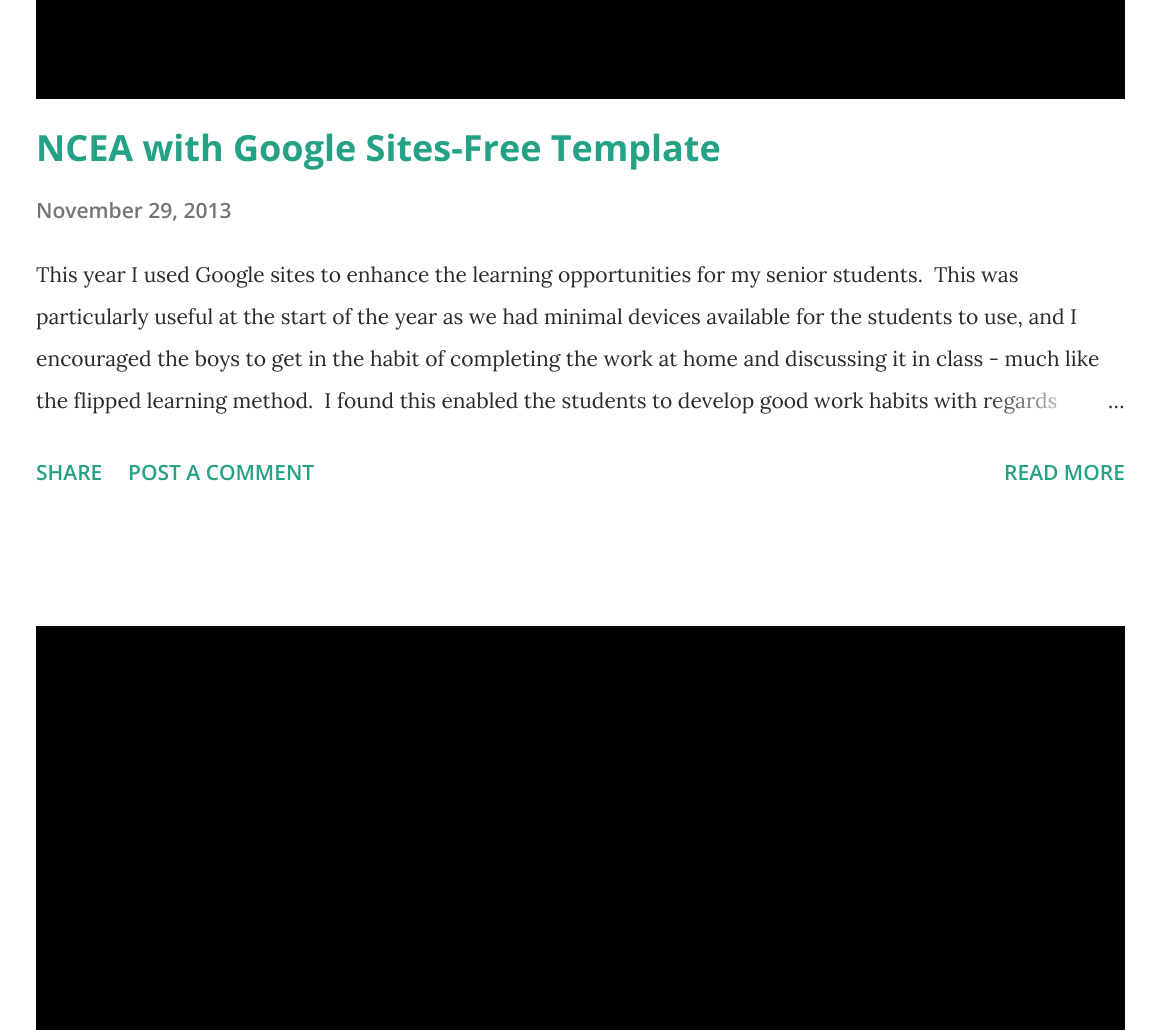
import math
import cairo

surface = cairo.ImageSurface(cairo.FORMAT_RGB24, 1160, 1030)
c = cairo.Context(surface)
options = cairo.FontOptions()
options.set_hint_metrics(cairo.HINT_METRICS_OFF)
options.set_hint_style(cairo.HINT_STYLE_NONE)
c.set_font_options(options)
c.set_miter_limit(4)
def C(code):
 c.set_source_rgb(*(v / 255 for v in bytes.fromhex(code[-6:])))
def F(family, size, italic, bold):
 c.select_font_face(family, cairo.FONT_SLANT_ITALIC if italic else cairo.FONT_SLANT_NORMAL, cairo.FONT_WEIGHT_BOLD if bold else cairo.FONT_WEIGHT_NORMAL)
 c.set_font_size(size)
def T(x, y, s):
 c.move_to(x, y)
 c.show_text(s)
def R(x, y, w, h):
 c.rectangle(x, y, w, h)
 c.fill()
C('ffffff')
c.paint()
C('000000')
R(36,0,1089,99)
F('Open Sans',36,0,1)
C('25a186')
T(36,161,'NCEA with Google Sites-Free Template')
F('Open Sans SemiBold',21,0,0)
C('757575')
T(36,218,'November 29, 2013')
F('Lora',21,0,0)
C('292929')
T(36,282,'This year I used Google sites to enhance the learning opportunities for my senior students.  This was')
T(36,324,'particularly useful at the start of the year as we had minimal devices available for the students to use, and I')
T(36,366,'encouraged the boys to get in the habit of completing the work at home and discussing it in class - much like')
T(36,408,'the flipped learning method.  I found this enabled the students to develop good work habits with regards')
gradient = cairo.LinearGradient(1125,401,981,401)
gradient.add_color_stop_rgba(0,1,1,1,1)
gradient.add_color_stop_rgba(.2,1,1,1,1)
gradient.add_color_stop_rgba(1,1,1,1,0)
c.set_source(gradient)
R(984,392,73,22)
C('292929')
T(1108,408,'…')
F('Open Sans SemiBold',21,0,0)
C('25a186')
T(36,480,'SHARE')
T(128,480,'POST A COMMENT')
T(1004,480,'READ MORE')
C('000000')
R(36,626,1089,404)
surface.write_to_png('o.png')
